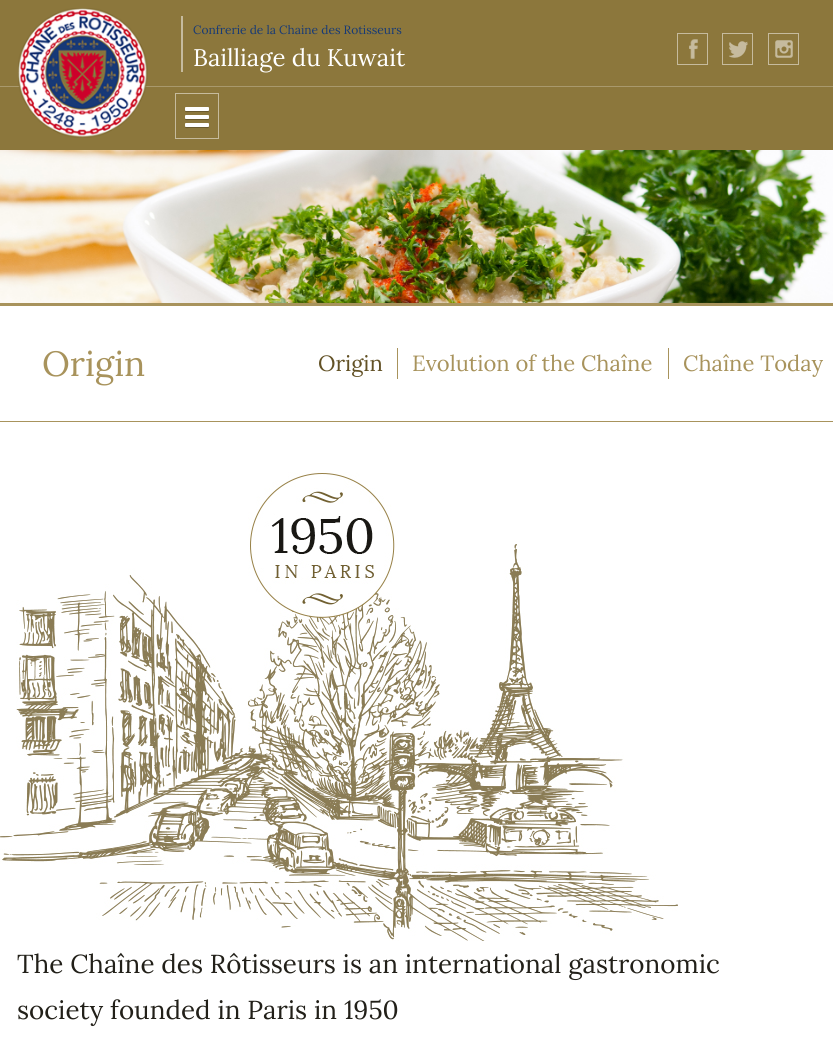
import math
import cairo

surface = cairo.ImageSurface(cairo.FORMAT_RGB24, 833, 1054)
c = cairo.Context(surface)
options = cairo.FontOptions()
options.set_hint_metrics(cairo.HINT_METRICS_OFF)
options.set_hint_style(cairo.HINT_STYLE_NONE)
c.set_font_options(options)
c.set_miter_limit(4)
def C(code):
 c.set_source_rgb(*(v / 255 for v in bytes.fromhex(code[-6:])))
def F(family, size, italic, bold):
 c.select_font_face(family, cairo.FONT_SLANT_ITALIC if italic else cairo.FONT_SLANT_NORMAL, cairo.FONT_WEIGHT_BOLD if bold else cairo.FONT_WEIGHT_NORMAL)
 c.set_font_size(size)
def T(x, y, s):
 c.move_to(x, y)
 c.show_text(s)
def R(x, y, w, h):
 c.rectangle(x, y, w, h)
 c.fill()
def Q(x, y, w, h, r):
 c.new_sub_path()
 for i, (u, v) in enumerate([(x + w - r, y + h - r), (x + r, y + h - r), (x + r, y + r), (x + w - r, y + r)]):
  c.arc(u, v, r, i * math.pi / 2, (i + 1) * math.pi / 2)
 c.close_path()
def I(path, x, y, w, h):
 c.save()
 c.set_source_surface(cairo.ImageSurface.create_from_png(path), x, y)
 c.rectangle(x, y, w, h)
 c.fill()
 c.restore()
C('ffffff')
c.paint()
C('8c773c')
R(0,0,833,150)
C('a9996d')
R(0,86,833,1)
I('1.png',18,8,130,130)
C('c6bb9e')
R(181,16,2,56)
F('Lora',12,0,0)
C('173a76')
T(193,34,'Confrerie de la Chaine des Rotisseurs')
F('Lora',24,0,0)
C('ffffff')
T(193,66,'Bailliage du Kuwait')
c.rectangle(677.5,33.5,30,31)
C('c6bb9e')
c.set_line_width(1)
c.stroke()
I('2.png',689,39,9,20)
c.rectangle(722.5,33.5,30,31)
c.stroke()
I('3.png',729,41,19,17)
c.rectangle(768.5,33.5,30,31)
c.stroke()
I('4.png',775,40,18,18)
C('a8935c')
R(0,303,833,3)
I('5.png',0,150,833,153)
R(0,421,833,1)
F('Lora',35,0,0)
T(42,376,'Origin')
R(397,348,1,31)
F('Lora',22,0,0)
C('625125')
T(318,371,'Origin')
C('a8935c')
R(668,348,1,31)
T(412,371,'Evolution of the Chaîne')
T(683,371,'Chaîne Today')
I('6.png',0,472,678,469)
F('Lora',26,0,0)
C('222019')
T(17,973,'The Chaîne des Rôtisseurs is an international gastronomic')
T(17,1019,'society founded in Paris in 1950')
c.rectangle(175.5,93.5,43,45)
C('c6bb9d')
c.stroke()
C('69592d')
c.new_path()
c.move_to(185,110)
c.curve_to(185,113,186.5,112,189.5,112)
c.line_to(204.5,112)
c.curve_to(207.5,112,209,113,209,110)
c.curve_to(209,110.5,208.5,111,208,111)
c.line_to(186,111)
c.curve_to(185.5,111,185,110.5,185,110)
c.close_path()
c.fill()
C('ffffff')
Q(185,107,24,4,1)
c.fill()
C('69592d')
c.new_path()
c.move_to(185,118)
c.curve_to(185,121,186.5,120,189.5,120)
c.line_to(204.5,120)
c.curve_to(207.5,120,209,121,209,118)
c.curve_to(209,118.5,208.5,119,208,119)
c.line_to(186,119)
c.curve_to(185.5,119,185,118.5,185,118)
c.close_path()
c.fill()
C('ffffff')
Q(185,115,24,4,1)
c.fill()
C('69592d')
c.new_path()
c.move_to(185,126)
c.curve_to(185,129,186.5,128,189.5,128)
c.line_to(204.5,128)
c.curve_to(207.5,128,209,129,209,126)
c.curve_to(209,126.5,208.5,127,208,127)
c.line_to(186,127)
c.curve_to(185.5,127,185,126.5,185,126)
c.close_path()
c.fill()
C('ffffff')
Q(185,123,24,4,1)
c.fill()
surface.write_to_png('o.png')
